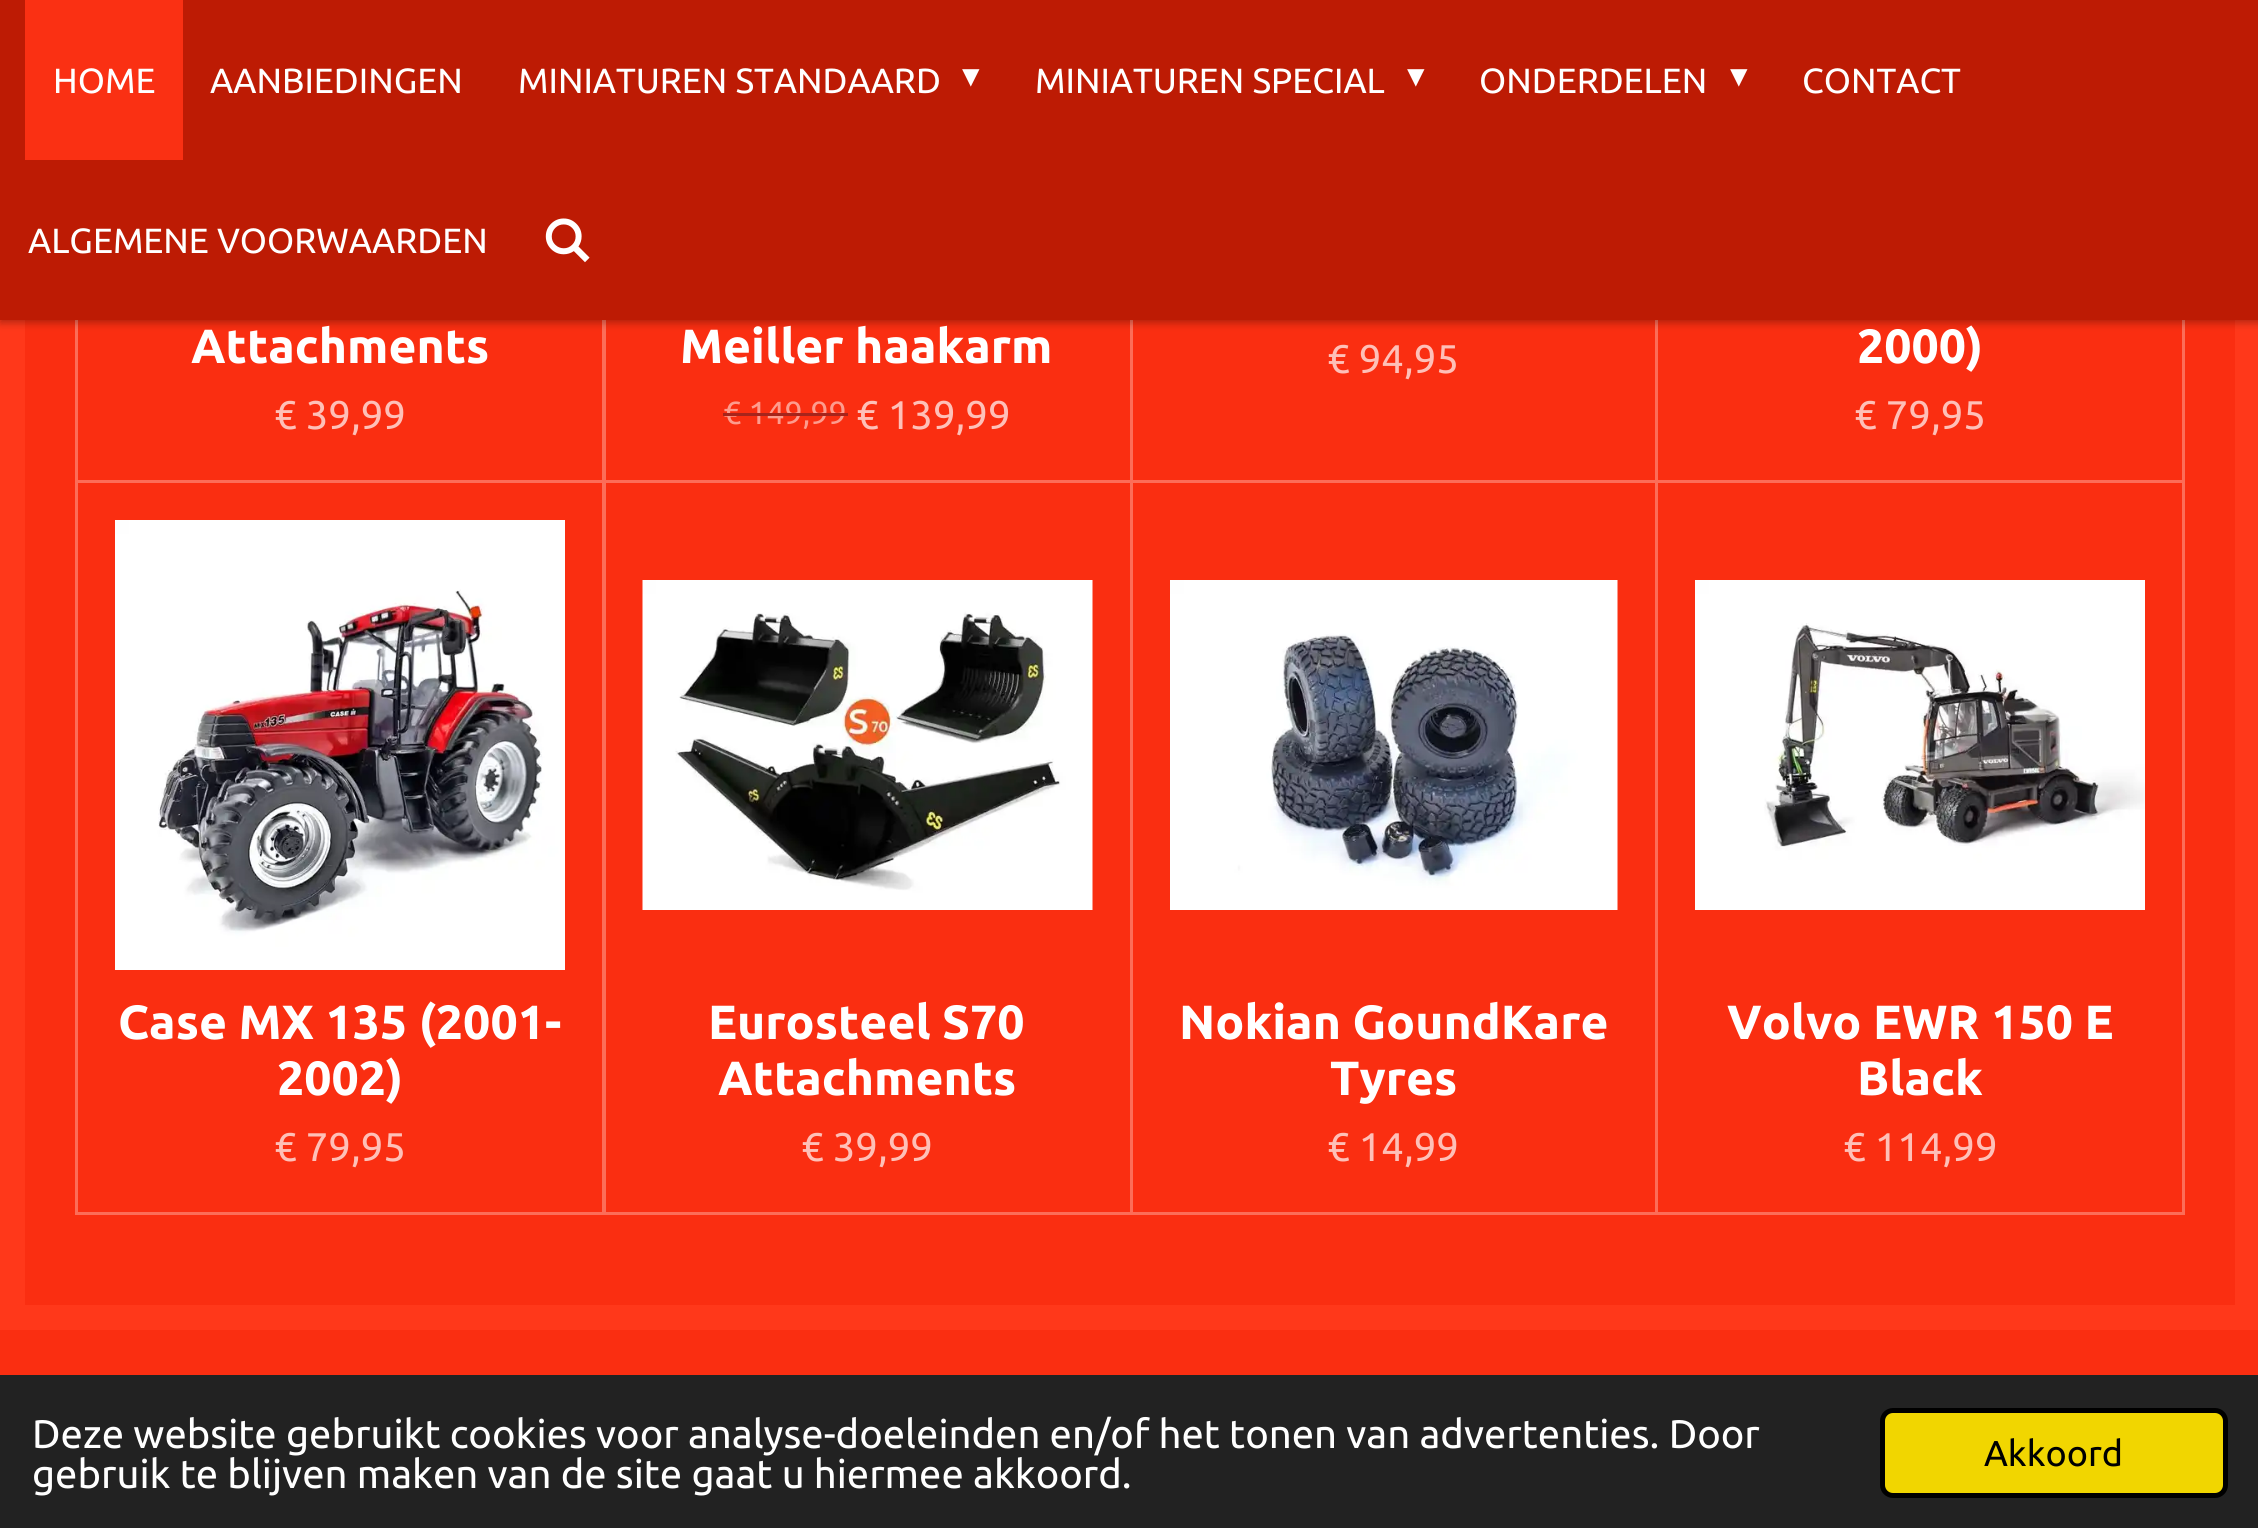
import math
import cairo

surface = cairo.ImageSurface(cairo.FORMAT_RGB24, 2258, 1528)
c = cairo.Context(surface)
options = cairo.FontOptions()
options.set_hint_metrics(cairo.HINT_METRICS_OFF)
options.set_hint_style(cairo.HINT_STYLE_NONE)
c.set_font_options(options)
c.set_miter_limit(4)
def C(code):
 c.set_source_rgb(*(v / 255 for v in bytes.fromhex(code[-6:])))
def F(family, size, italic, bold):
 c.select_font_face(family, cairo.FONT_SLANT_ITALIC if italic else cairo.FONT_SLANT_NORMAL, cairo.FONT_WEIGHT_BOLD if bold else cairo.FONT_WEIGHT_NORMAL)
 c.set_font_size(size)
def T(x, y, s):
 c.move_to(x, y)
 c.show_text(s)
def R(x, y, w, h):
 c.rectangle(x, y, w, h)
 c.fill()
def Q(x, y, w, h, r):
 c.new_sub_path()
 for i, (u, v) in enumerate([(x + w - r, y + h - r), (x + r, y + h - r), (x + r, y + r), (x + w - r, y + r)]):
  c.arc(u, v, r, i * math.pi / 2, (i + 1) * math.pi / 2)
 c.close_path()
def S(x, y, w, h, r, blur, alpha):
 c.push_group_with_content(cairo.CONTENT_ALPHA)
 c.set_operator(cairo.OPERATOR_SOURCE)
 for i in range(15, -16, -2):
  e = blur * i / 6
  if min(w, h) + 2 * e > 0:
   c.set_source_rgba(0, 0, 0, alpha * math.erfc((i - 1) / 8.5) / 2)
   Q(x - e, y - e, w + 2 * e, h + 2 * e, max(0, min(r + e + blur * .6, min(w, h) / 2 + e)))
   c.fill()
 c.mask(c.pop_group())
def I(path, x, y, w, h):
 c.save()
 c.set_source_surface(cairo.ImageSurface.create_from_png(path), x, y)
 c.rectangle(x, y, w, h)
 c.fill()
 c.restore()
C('fa2e11')
c.paint()
C('ff381a')
R(0,320,2258,1010)
C('fa2e11')
R(25,320,2210,985)
c.rectangle(76.5,-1.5,527,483)
C('fc6d58')
c.set_line_width(3)
c.stroke()
c.rectangle(604.5,-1.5,527,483)
c.stroke()
c.rectangle(1131.5,-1.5,525,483)
c.stroke()
c.rectangle(1656.5,-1.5,527,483)
c.stroke()
C('000000')
S(0,-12,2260,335,0,4,.3)
C('bd1b04')
R(0,0,2258,320)
C('fa3013')
R(25,0,158,160)
F('Ubuntu',35,0,0)
C('ffffff')
T(53,93,'HOME')
T(210,93,'AANBIEDINGEN')
T(518,93,'MINIATUREN STANDAARD')
F('DejaVu Sans',35,0,0)
T(962,87,'▾')
F('Ubuntu',35,0,0)
T(1035,93,'MINIATUREN SPECIAL')
F('DejaVu Sans',35,0,0)
T(1407,87,'▾')
F('Ubuntu',35,0,0)
T(1479,93,'ONDERDELEN')
F('DejaVu Sans',35,0,0)
T(1730,87,'▾')
F('Ubuntu',35,0,0)
T(1802,93,'CONTACT')
T(28,253,'ALGEMENE VOORWAARDEN')
I('1.png',545,218,45,45)
F('Ubuntu',48,0,1)
T(191,363,'Attachments')
F('Ubuntu',40,0,0)
C('fec0b8')
T(274,429,'€ 39,99')
F('Ubuntu',48,0,1)
C('ffffff')
T(680,363,'Meiller haakarm')
F('Ubuntu',32,0,0)
C('fd9c8e')
T(723,424,'€ 149,99')
C('a7241b')
R(723,413,125,3)
F('Ubuntu',40,0,0)
C('fec0b8')
T(856,429,'€ 139,99')
T(1327,373,'€ 94,95')
F('Ubuntu',48,0,1)
C('ffffff')
T(1857,363,'2000)')
F('Ubuntu',40,0,0)
C('fec0b8')
T(1854,429,'€ 79,95')
c.rectangle(76.5,481.5,527,732)
C('fc6d58')
c.stroke()
I('2.png',115,520,450,450)
F('Ubuntu',48,0,1)
C('ffffff')
T(118,1039,'Case MX 135 (2001-')
T(277,1095,'2002)')
F('Ubuntu',40,0,0)
C('fec0b8')
T(274,1161,'€ 79,95')
c.rectangle(604.5,481.5,527,732)
C('fc6d58')
c.stroke()
I('3.png',642,580,451,330)
F('Ubuntu',48,0,1)
C('ffffff')
T(708,1039,'Eurosteel S70')
T(718,1095,'Attachments')
F('Ubuntu',40,0,0)
C('fec0b8')
T(801,1161,'€ 39,99')
c.rectangle(1131.5,481.5,525,732)
C('fc6d58')
c.stroke()
I('4.png',1170,580,448,330)
F('Ubuntu',48,0,1)
C('ffffff')
T(1179,1039,'Nokian GoundKare')
T(1330,1095,'Tyres')
F('Ubuntu',40,0,0)
C('fec0b8')
T(1327,1161,'€ 14,99')
c.rectangle(1656.5,481.5,527,732)
C('fc6d58')
c.stroke()
I('5.png',1695,580,450,330)
F('Ubuntu',48,0,1)
C('ffffff')
T(1727,1039,'Volvo EWR 150 E')
T(1857,1095,'Black')
F('Ubuntu',40,0,0)
C('fec0b8')
T(1843,1161,'€ 114,99')
C('222222')
R(0,1375,2258,153)
C('ffffff')
T(32,1448,'Deze website gebruikt cookies voor analyse-doeleinden en/of het tonen van advertenties. Door')
T(32,1488,'gebruik te blijven maken van de site gaat u hiermee akkoord.')
C('f1d600')
Q(1882.5,1410.5,343,85,10.5)
c.fill_preserve()
C('000000')
c.set_line_width(5)
c.stroke()
F('Ubuntu',36,0,0)
T(1984,1466,'Akkoord')
surface.write_to_png('o.png')
